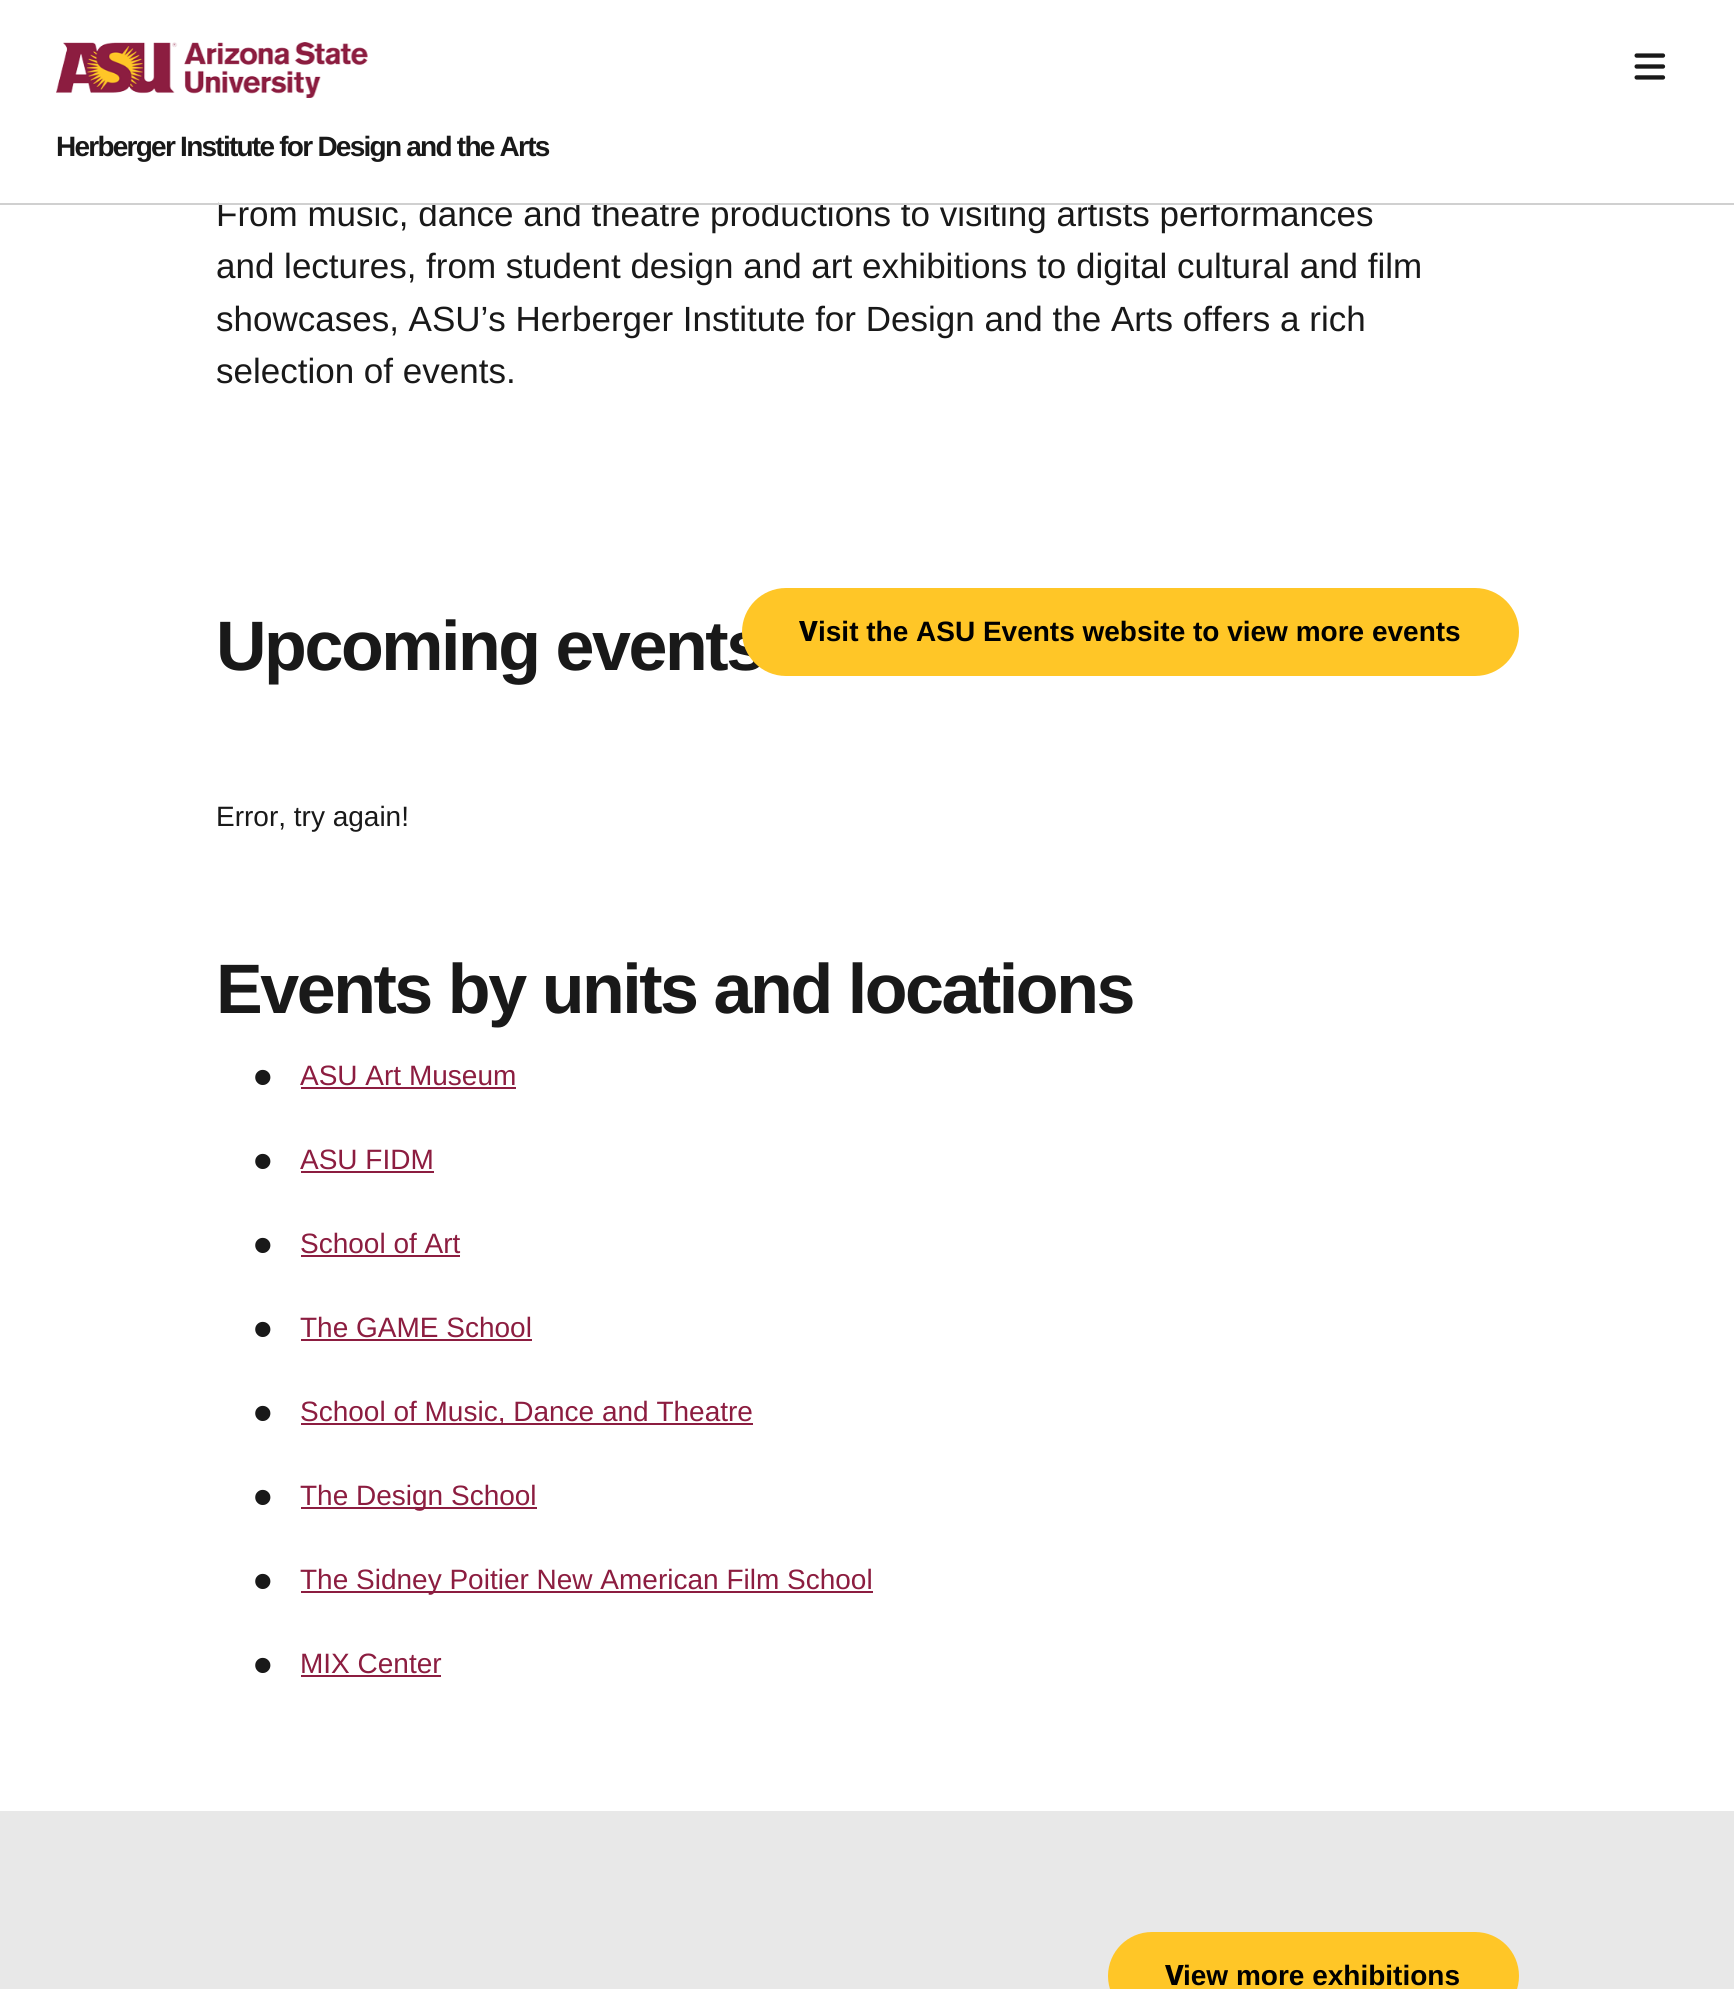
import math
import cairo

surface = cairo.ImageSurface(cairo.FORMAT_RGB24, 1734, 1989)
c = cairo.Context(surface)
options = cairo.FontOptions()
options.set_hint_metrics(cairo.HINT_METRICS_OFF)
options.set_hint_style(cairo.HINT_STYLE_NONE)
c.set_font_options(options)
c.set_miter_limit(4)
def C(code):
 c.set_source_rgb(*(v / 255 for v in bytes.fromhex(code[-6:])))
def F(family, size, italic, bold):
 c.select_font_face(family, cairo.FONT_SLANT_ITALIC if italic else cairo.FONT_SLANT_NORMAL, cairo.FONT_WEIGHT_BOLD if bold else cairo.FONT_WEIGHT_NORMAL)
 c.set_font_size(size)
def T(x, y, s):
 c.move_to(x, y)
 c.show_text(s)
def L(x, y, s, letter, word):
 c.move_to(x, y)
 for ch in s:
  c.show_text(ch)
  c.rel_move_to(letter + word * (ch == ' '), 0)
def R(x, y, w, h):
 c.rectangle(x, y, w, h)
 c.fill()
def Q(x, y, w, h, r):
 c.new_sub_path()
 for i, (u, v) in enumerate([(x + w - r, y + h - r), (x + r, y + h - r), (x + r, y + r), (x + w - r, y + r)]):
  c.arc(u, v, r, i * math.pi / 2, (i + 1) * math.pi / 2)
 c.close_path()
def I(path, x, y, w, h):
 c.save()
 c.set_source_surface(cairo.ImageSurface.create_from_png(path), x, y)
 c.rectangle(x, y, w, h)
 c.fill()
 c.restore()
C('ffffff')
c.paint()
F('Liberation Sans',35,0,0)
C('191919')
T(216,226,'From music, dance and theatre productions to visiting artists performances')
C('ffffff')
R(219,200,1001,3)
C('d0d0d0')
R(0,203,1734,2)
I('1.png',56,42,312,56)
I('2.png',1634,53,32,27)
F('Liberation Sans',28,0,1)
C('191919')
L(56,156,'Herberger Institute for Design and the Arts',-1.75,0)
F('Liberation Sans',35,0,0)
T(216,278,'and lectures, from student design and art exhibitions to digital cultural and film')
T(216,331,'showcases, ASU’s Herberger Institute for Design and the Arts offers a rich')
T(216,383,'selection of events.')
F('Liberation Sans',70,0,1)
L(216,670,'Upcoming events',-2.45,0)
C('ffc627')
Q(743,589,775,86,43)
c.fill_preserve()
c.stroke()
F('Noto Sans ExtraBold',28,0,0)
C('000000')
T(799,641,'V')
F('Liberation Sans',28,0,1)
T(818,641,'isit the ASU Events website to view more events')
F('Liberation Sans',28,0,0)
C('191919')
T(216,826,'Error, try again!')
F('Liberation Sans',70,0,1)
L(216,1013,'Events by units and locations',-2.45,0)
F('Liberation Sans',56,0,0)
T(253,1096,'•')
F('Liberation Sans',28,0,0)
C('8c1d40')
T(300,1085,'ASU Art Museum')
R(301,1087,215,2)
F('Liberation Sans',56,0,0)
C('191919')
T(253,1180,'•')
F('Liberation Sans',28,0,0)
C('8c1d40')
T(300,1169,'ASU FIDM')
R(301,1171,133,2)
F('Liberation Sans',56,0,0)
C('191919')
T(253,1264,'•')
F('Liberation Sans',28,0,0)
C('8c1d40')
T(300,1253,'School of Art')
R(301,1255,159,2)
F('Liberation Sans',56,0,0)
C('191919')
T(253,1348,'•')
F('Liberation Sans',28,0,0)
C('8c1d40')
T(300,1337,'The GAME School')
R(301,1339,231,2)
F('Liberation Sans',56,0,0)
C('191919')
T(253,1432,'•')
C('8c1d40')
R(301,1423,452,2)
F('Liberation Sans',28,0,0)
T(300,1421,'School of Music, Dance and Theatre')
F('Liberation Sans',56,0,0)
C('191919')
T(253,1516,'•')
C('8c1d40')
R(301,1507,236,2)
F('Liberation Sans',28,0,0)
T(300,1505,'The Design School')
F('Liberation Sans',56,0,0)
C('191919')
T(253,1600,'•')
C('8c1d40')
R(301,1591,572,2)
F('Liberation Sans',28,0,0)
T(300,1589,'The Sidney Poitier New American Film School')
F('Liberation Sans',56,0,0)
C('191919')
T(253,1684,'•')
F('Liberation Sans',28,0,0)
C('8c1d40')
T(300,1673,'MIX Center')
R(301,1675,140,2)
C('e8e8e8')
R(0,1811,1734,178)
C('ffc627')
Q(1109,1933,409,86,43)
c.fill_preserve()
c.stroke()
F('Noto Sans ExtraBold',28,0,0)
C('000000')
T(1165,1985,'V')
F('Liberation Sans',28,0,1)
T(1183,1985,'iew more exhibitions')
surface.write_to_png('o.png')
